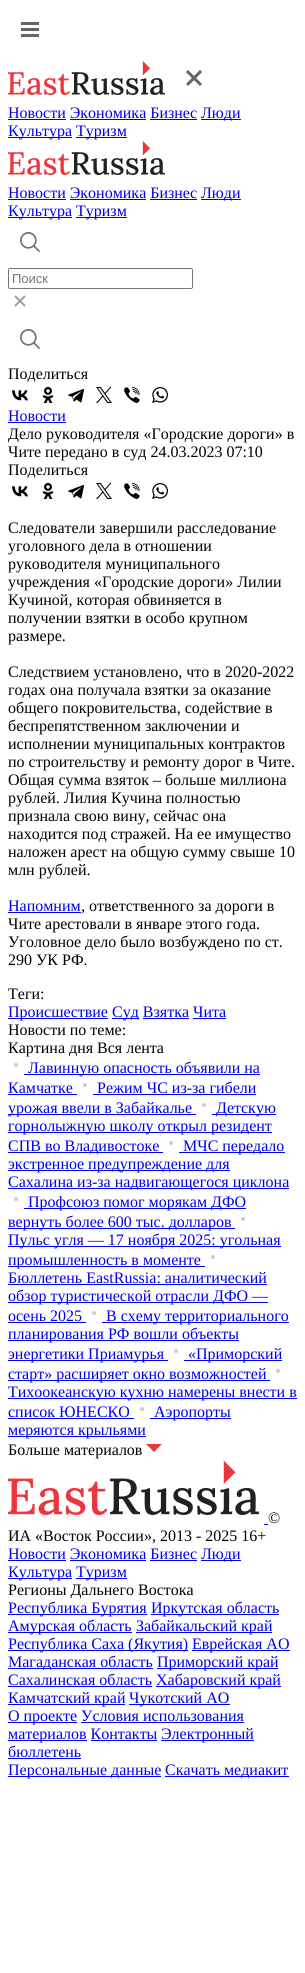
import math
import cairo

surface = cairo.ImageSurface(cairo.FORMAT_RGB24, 305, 1973)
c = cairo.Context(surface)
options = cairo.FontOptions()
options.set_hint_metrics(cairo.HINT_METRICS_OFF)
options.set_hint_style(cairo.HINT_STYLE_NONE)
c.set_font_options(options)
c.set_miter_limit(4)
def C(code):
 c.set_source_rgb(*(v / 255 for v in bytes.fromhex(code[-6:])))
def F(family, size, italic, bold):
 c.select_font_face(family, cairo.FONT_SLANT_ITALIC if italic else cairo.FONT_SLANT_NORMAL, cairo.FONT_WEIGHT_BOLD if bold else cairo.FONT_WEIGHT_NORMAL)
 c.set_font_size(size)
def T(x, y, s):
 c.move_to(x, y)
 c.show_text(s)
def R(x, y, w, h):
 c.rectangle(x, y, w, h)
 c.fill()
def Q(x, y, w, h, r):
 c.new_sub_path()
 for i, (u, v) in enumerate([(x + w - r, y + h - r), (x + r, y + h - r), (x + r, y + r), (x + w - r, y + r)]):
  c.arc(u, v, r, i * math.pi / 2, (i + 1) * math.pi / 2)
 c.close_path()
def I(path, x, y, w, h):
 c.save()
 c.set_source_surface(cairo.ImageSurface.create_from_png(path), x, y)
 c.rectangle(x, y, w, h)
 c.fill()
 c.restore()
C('ffffff')
c.paint()
I('1.png',21,22,18,15)
I('2.png',8,61,157,34)
c.new_path()
c.move_to(187,71)
c.line_to(194,78)
c.move_to(201,85)
c.line_to(194,78)
c.move_to(194,78)
c.line_to(201,71)
c.move_to(194,78)
c.line_to(187,85)
C('666666')
c.set_line_width(3)
c.stroke()
F('Liberation Serif',16,0,0)
C('0000ee')
T(8,118,'Новости Экономика Бизнес')
R(8,119,58,1)
R(201,119,40,1)
T(201,118,'Люди')
R(70,119,76,1)
R(150,119,47,1)
R(8,137,64,1)
T(8,136,'Культура')
R(76,137,51,1)
T(76,136,'Туризм')
I('2.png',8,141,157,34)
T(8,198,'Новости Экономика Бизнес')
R(8,199,58,1)
R(201,199,40,1)
T(201,198,'Люди')
R(70,199,76,1)
R(150,199,47,1)
R(8,217,64,1)
T(8,216,'Культура')
R(76,217,51,1)
T(76,216,'Туризм')
I('3.png',20,232,20,20)
Q(8.5,268.5,184,20,1.5)
C('767676')
c.set_line_width(1)
c.stroke()
F('Liberation Sans',13,0,0)
C('757575')
T(12,283,'Поиск')
I('4.png',14,295,12,12)
I('3.png',20,329,20,20)
F('Liberation Serif',16,0,0)
C('000000')
T(8,379,'Поделиться')
I('5.png',12,390,16,11)
I('6.png',42,387,12,16)
I('7.png',68,389,16,14)
I('8.png',96,387,16,16)
I('9.png',124,387,16,16)
I('10.png',152,387,16,16)
C('0000ee')
T(8,421,'Новости')
R(8,422,58,1)
C('000000')
T(8,439,'Дело руководителя «Городские дороги» в')
T(8,457,'Чите передано в суд 24.03.2023 07:10')
T(8,475,'Поделиться')
I('5.png',12,486,16,11)
I('6.png',42,483,12,16)
I('7.png',68,485,16,14)
I('8.png',96,483,16,16)
I('9.png',124,483,16,16)
I('10.png',152,483,16,16)
T(8,533,'Следователи завершили расследование')
T(8,551,'уголовного дела в отношении')
T(8,569,'руководителя муниципального')
T(8,587,'учреждения «Городские дороги» Лилии')
T(8,605,'Кучиной, которая обвиняется в')
T(8,623,'получении взятки в особо крупном')
T(8,641,'размере.')
T(8,677,'Следствием установлено, что в 2020-2022')
T(8,695,'годах она получала взятки за оказание')
T(8,713,'общего покровительства, содействие в')
T(8,731,'беспрепятственном заключении и')
T(8,749,'исполнении муниципальных контрактов')
T(8,767,'по строительству и ремонту дорог в Чите.')
T(8,785,'Общая сумма взяток – больше миллиона')
T(8,803,'рублей. Лилия Кучина полностью')
T(8,821,'признала свою вину, сейчас она')
T(8,839,'находится под стражей. На ее имущество')
T(8,857,'наложен арест на общую сумму свыше 10')
T(8,875,'млн рублей.')
C('0000ee')
T(8,911,'Напомним')
R(8,912,73,1)
C('000000')
T(81,911,', ответственного за дороги в')
T(8,929,'Чите арестовали в январе этого года.')
T(8,947,'Уголовное дело было возбуждено по ст.')
T(8,965,'290 УК РФ.')
T(8,999,'Теги:')
C('0000ee')
R(8,1018,100,1)
T(8,1017,'Происшествие')
R(112,1018,27,1)
T(112,1017,'Суд Взятка Чита')
R(143,1018,46,1)
R(193,1018,33,1)
C('000000')
T(8,1035,'Новости по теме:')
T(8,1053,'Картина дня Вся лента')
C('0000ee')
R(24,1074,236,1)
T(28,1073,'Лавинную опасность объявили на')
C('cccccc')
c.new_path()
c.arc(16,1065,2,0,2 * math.pi)
c.fill()
C('0000ee')
T(8,1093,'Камчатке')
R(8,1094,69,1)
T(97,1093,'Режим ЧС из-за гибели')
C('cccccc')
c.new_path()
c.arc(85,1085,2,0,2 * math.pi)
c.fill()
C('0000ee')
R(93,1094,163,1)
R(8,1114,188,1)
T(8,1113,'урожая ввели в Забайкалье')
R(212,1114,64,1)
T(216,1113,'Детскую')
C('cccccc')
c.new_path()
c.arc(204,1105,2,0,2 * math.pi)
c.fill()
C('0000ee')
R(8,1132,264,1)
T(8,1131,'горнолыжную школу открыл резидент')
R(8,1152,155,1)
T(8,1151,'СПВ во Владивостоке')
R(179,1152,106,1)
T(183,1151,'МЧС передало')
C('cccccc')
c.new_path()
c.arc(171,1143,2,0,2 * math.pi)
c.fill()
C('0000ee')
R(8,1170,222,1)
T(8,1169,'экстренное предупреждение для')
R(8,1188,281,1)
T(8,1187,'Сахалина из-за надвигающегося циклона')
R(24,1208,222,1)
T(28,1207,'Профсоюз помог морякам ДФО')
C('cccccc')
c.new_path()
c.arc(16,1199,2,0,2 * math.pi)
c.fill()
C('0000ee')
R(8,1228,227,1)
T(8,1227,'вернуть более 600 тыс. долларов')
R(8,1246,273,1)
T(8,1245,'Пульс угля — 17 ноября 2025: угольная')
C('cccccc')
c.new_path()
c.arc(243,1219,2,0,2 * math.pi)
c.fill()
C('0000ee')
R(8,1266,197,1)
T(8,1265,'промышленность в моменте')
T(8,1283,'Бюллетень EastRussia: аналитический')
C('cccccc')
c.new_path()
c.arc(213,1257,2,0,2 * math.pi)
c.fill()
C('0000ee')
R(8,1284,259,1)
R(8,1302,260,1)
T(8,1301,'обзор туристической отрасли ДФО —')
T(8,1321,'осень 2025')
R(8,1322,78,1)
R(102,1322,187,1)
T(106,1321,'В схему территориального')
C('cccccc')
c.new_path()
c.arc(94,1313,2,0,2 * math.pi)
c.fill()
C('0000ee')
R(8,1340,231,1)
T(8,1339,'планирования РФ вошли объекты')
R(8,1360,160,1)
T(8,1359,'энергетики Приамурья')
R(184,1360,98,1)
T(188,1359,'«Приморский')
C('cccccc')
c.new_path()
c.arc(176,1351,2,0,2 * math.pi)
c.fill()
C('0000ee')
R(8,1380,258,1)
T(8,1379,'старт» расширяет окно возможностей')
R(266,1380,4,1)
R(8,1398,289,1)
T(8,1397,'Тихоокеанскую кухню намерены внести в')
C('cccccc')
c.new_path()
c.arc(278,1371,2,0,2 * math.pi)
c.fill()
C('0000ee')
T(8,1417,'список ЮНЕСКО')
R(8,1418,126,1)
R(150,1418,81,1)
T(154,1417,'Аэропорты')
C('cccccc')
c.new_path()
c.arc(142,1409,2,0,2 * math.pi)
c.fill()
C('0000ee')
R(8,1436,138,1)
T(8,1435,'меряются крыльями')
C('000000')
T(8,1455,'Больше материалов')
C('ec353c')
c.new_path()
c.move_to(146,1444)
c.line_to(162,1444)
c.line_to(154,1452)
c.close_path()
c.fill()
I('11.png',8,1460,251,55)
C('000000')
T(268,1523,'©')
C('0000ee')
R(264,1524,4,1)
C('000000')
T(8,1541,'ИА «Восток России», 2013 - 2025 16+')
C('0000ee')
T(8,1559,'Новости Экономика Бизнес')
R(8,1560,58,1)
R(201,1560,40,1)
T(201,1559,'Люди')
R(70,1560,76,1)
R(150,1560,47,1)
R(8,1578,64,1)
T(8,1577,'Культура')
R(76,1578,51,1)
T(76,1577,'Туризм')
C('000000')
T(8,1595,'Регионы Дальнего Востока')
C('0000ee')
R(8,1614,139,1)
T(8,1613,'Республика Бурятия')
R(151,1614,128,1)
T(151,1613,'Иркутская область')
R(8,1632,124,1)
T(8,1631,'Амурская область')
R(136,1632,136,1)
T(136,1631,'Забайкальский край')
R(8,1650,180,1)
T(8,1649,'Республика Саха (Якутия)')
R(192,1650,98,1)
T(192,1649,'Еврейская АО')
R(8,1668,145,1)
T(8,1667,'Магаданская область')
R(157,1668,121,1)
T(157,1667,'Приморский край')
T(8,1685,'Сахалинская область')
R(8,1686,144,1)
R(156,1686,125,1)
T(156,1685,'Хабаровский край')
R(8,1704,117,1)
T(8,1703,'Камчатский край')
R(129,1704,101,1)
T(129,1703,'Чукотский АО')
R(8,1722,69,1)
T(8,1721,'О проекте Условия использования')
R(8,1740,79,1)
T(8,1739,'материалов Контакты')
R(81,1722,163,1)
R(161,1740,93,1)
T(161,1739,'Электронный')
R(91,1740,66,1)
T(8,1757,'бюллетень')
R(8,1758,73,1)
R(8,1776,153,1)
T(8,1775,'Персональные данные')
R(165,1776,124,1)
T(165,1775,'Скачать медиакит')
surface.write_to_png('o.png')
